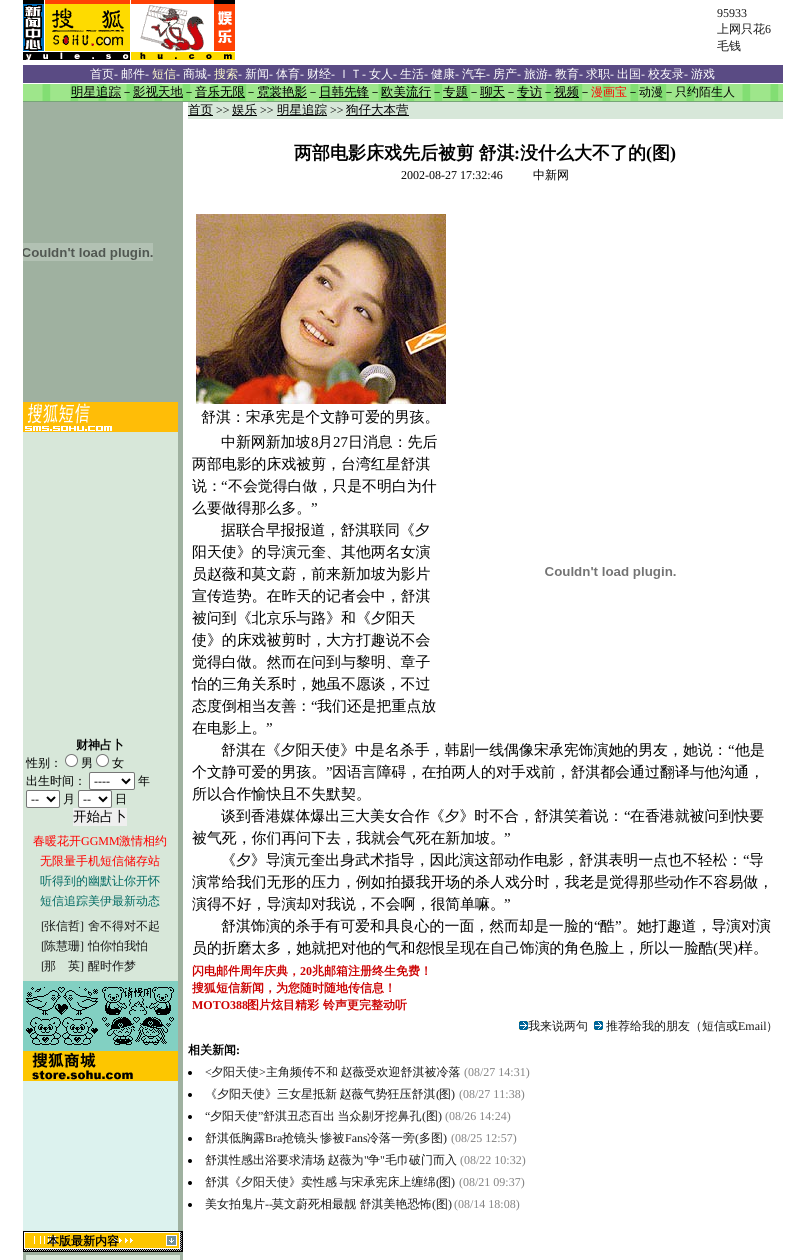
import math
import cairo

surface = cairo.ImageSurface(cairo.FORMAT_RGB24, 805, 1260)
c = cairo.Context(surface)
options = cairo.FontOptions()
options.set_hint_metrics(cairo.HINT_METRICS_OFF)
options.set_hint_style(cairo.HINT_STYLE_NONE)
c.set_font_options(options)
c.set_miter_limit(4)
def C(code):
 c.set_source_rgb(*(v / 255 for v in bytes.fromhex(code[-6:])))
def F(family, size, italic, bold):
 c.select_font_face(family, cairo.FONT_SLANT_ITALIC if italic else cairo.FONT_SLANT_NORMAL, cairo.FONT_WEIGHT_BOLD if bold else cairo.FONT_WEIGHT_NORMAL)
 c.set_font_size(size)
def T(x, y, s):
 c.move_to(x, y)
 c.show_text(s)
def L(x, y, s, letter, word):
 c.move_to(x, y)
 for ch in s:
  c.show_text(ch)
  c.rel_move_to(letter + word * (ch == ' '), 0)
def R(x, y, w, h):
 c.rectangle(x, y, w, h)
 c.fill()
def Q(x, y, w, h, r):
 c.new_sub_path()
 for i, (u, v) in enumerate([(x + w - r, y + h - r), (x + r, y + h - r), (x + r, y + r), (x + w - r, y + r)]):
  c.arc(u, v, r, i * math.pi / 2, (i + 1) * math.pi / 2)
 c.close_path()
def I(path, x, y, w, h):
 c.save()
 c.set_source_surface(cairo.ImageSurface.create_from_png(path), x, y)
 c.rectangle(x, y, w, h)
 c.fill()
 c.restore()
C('ffffff')
c.paint()
I('1.png',23,0,212,60)
F('Liberation Serif',12,0,0)
C('191919')
T(717,17,'95933')
F('WenQuanYi Zen Hei Medium',12,0,0)
T(717,33,'上网只花')
F('Liberation Serif',12,0,0)
T(765,33,'6')
F('WenQuanYi Zen Hei Medium',12,0,0)
T(717,50,'毛钱')
C('5a4b84')
R(23,65,760,18)
C('ffffff')
T(90,78,'首页')
F('Liberation Serif',12,0,0)
T(114,78,'-')
F('WenQuanYi Zen Hei Medium',12,0,0)
T(121,78,'邮件')
F('Liberation Serif',12,0,0)
T(145,78,'-')
F('WenQuanYi Zen Hei Medium',12,0,0)
C('fffccc')
T(152,78,'短信')
F('Liberation Serif',12,0,0)
C('ffffff')
T(176,78,'-')
F('WenQuanYi Zen Hei Medium',12,0,0)
T(183,78,'商城')
F('Liberation Serif',12,0,0)
T(207,78,'-')
F('WenQuanYi Zen Hei Medium',12,0,0)
C('fffccc')
T(214,78,'搜索')
F('Liberation Serif',12,0,0)
C('ffffff')
T(238,78,'-')
F('WenQuanYi Zen Hei Medium',12,0,0)
T(245,78,'新闻')
F('Liberation Serif',12,0,0)
T(269,78,'-')
F('WenQuanYi Zen Hei Medium',12,0,0)
T(276,78,'体育')
F('Liberation Serif',12,0,0)
T(300,78,'-')
F('WenQuanYi Zen Hei Medium',12,0,0)
T(307,78,'财经')
F('Liberation Serif',12,0,0)
T(331,78,'-')
F('WenQuanYi Zen Hei Medium',12,0,0)
T(338,78,'ＩＴ')
F('Liberation Serif',12,0,0)
T(362,78,'-')
F('WenQuanYi Zen Hei Medium',12,0,0)
T(369,78,'女人')
F('Liberation Serif',12,0,0)
T(393,78,'-')
F('WenQuanYi Zen Hei Medium',12,0,0)
T(400,78,'生活')
F('Liberation Serif',12,0,0)
T(424,78,'-')
F('WenQuanYi Zen Hei Medium',12,0,0)
T(431,78,'健康')
F('Liberation Serif',12,0,0)
T(455,78,'-')
F('WenQuanYi Zen Hei Medium',12,0,0)
T(462,78,'汽车')
F('Liberation Serif',12,0,0)
T(486,78,'-')
F('WenQuanYi Zen Hei Medium',12,0,0)
T(493,78,'房产')
F('Liberation Serif',12,0,0)
T(517,78,'-')
F('WenQuanYi Zen Hei Medium',12,0,0)
T(524,78,'旅游')
F('Liberation Serif',12,0,0)
T(548,78,'-')
F('WenQuanYi Zen Hei Medium',12,0,0)
T(555,78,'教育')
F('Liberation Serif',12,0,0)
T(579,78,'-')
F('WenQuanYi Zen Hei Medium',12,0,0)
T(586,78,'求职')
F('Liberation Serif',12,0,0)
T(610,78,'-')
F('WenQuanYi Zen Hei Medium',12,0,0)
T(617,78,'出国')
F('Liberation Serif',12,0,0)
T(641,78,'-')
F('WenQuanYi Zen Hei Medium',12,0,0)
T(648,78,'校友录')
F('Liberation Serif',12,0,0)
T(684,78,'-')
F('WenQuanYi Zen Hei Medium',12,0,0)
T(691,78,'游戏')
I('2.png',23,84,760,17)
C('000000')
R(71,97,50,1)
F('WenQuanYi Zen Hei Medium',12.5,0,0)
T(71,96,'明星追踪')
F('WenQuanYi Zen Hei Medium',12,0,0)
T(121,96,'－')
R(133,97,50,1)
F('WenQuanYi Zen Hei Medium',12.5,0,0)
T(133,96,'影视天地')
F('WenQuanYi Zen Hei Medium',12,0,0)
T(183,96,'－')
R(195,97,50,1)
F('WenQuanYi Zen Hei Medium',12.5,0,0)
T(195,96,'音乐无限')
F('WenQuanYi Zen Hei Medium',12,0,0)
T(245,96,'－')
R(257,97,50,1)
F('WenQuanYi Zen Hei Medium',12.5,0,0)
T(257,96,'霓裳艳影')
F('WenQuanYi Zen Hei Medium',12,0,0)
T(307,96,'－')
R(319,97,50,1)
F('WenQuanYi Zen Hei Medium',12.5,0,0)
T(319,96,'日韩先锋')
F('WenQuanYi Zen Hei Medium',12,0,0)
T(369,96,'－')
R(381,97,50,1)
F('WenQuanYi Zen Hei Medium',12.5,0,0)
T(381,96,'欧美流行')
F('WenQuanYi Zen Hei Medium',12,0,0)
T(431,96,'－')
R(443,97,25,1)
F('WenQuanYi Zen Hei Medium',12.5,0,0)
T(443,96,'专题')
F('WenQuanYi Zen Hei Medium',12,0,0)
T(468,96,'－')
R(480,97,25,1)
F('WenQuanYi Zen Hei Medium',12.5,0,0)
T(480,96,'聊天')
F('WenQuanYi Zen Hei Medium',12,0,0)
T(505,96,'－')
R(517,97,25,1)
F('WenQuanYi Zen Hei Medium',12.5,0,0)
T(517,96,'专访')
F('WenQuanYi Zen Hei Medium',12,0,0)
T(542,96,'－')
R(554,97,25,1)
F('WenQuanYi Zen Hei Medium',12.5,0,0)
T(554,96,'视频')
F('WenQuanYi Zen Hei Medium',12,0,0)
T(579,96,'－')
C('ff0000')
T(591,96,'漫画宝')
C('000000')
T(627,96,'－动漫－只约陌生人')
C('76a577')
R(23,101,760,1)
C('9fb1a0')
R(23,102,160,1158)
I('3.png',23,243,130,18)
C('d7e7d9')
R(23,432,155,549)
I('4.png',23,402,155,30)
F('WenQuanYi Zen Hei',12,0,1)
C('000000')
T(76,749,'财神占卜')
F('WenQuanYi Zen Hei Medium',12,0,0)
T(26,767,'性别：')
C('ffffff')
c.new_path()
c.arc(71.5,760.5,6,0,2 * math.pi)
c.fill_preserve()
C('767676')
c.set_line_width(1)
c.stroke()
C('000000')
T(81,767,'男')
C('ffffff')
c.new_path()
c.arc(102.5,760.5,6,0,2 * math.pi)
c.fill_preserve()
C('767676')
c.stroke()
C('000000')
T(112,767,'女')
T(26,785,'出生时间：')
C('ffffff')
Q(89.5,772.5,45,17,1.5)
c.fill_preserve()
C('767676')
c.stroke()
c.new_path()
c.move_to(122,779)
c.line_to(126,783)
c.line_to(130,779)
C('000000')
c.set_line_width(2)
c.stroke()
F('Liberation Serif',12,0,0)
T(94,785,'----')
F('WenQuanYi Zen Hei Medium',12,0,0)
T(138,785,'年')
C('ffffff')
Q(26.5,790.5,33,17,1.5)
c.fill_preserve()
C('767676')
c.set_line_width(1)
c.stroke()
c.new_path()
c.move_to(47,797)
c.line_to(51,801)
c.line_to(55,797)
C('000000')
c.set_line_width(2)
c.stroke()
F('Liberation Serif',12,0,0)
T(31,803,'--')
F('WenQuanYi Zen Hei Medium',12,0,0)
T(63,803,'月')
C('ffffff')
Q(78.5,790.5,33,17,1.5)
c.fill_preserve()
C('767676')
c.set_line_width(1)
c.stroke()
c.new_path()
c.move_to(99,797)
c.line_to(103,801)
c.line_to(107,797)
C('000000')
c.set_line_width(2)
c.stroke()
F('Liberation Serif',12,0,0)
T(83,803,'--')
F('WenQuanYi Zen Hei Medium',12,0,0)
T(115,803,'日')
C('efefef')
R(73,808,54,18)
F('WenQuanYi Zen Hei Medium',13.5,0,0)
C('000000')
T(73,821,'开始占卜')
F('WenQuanYi Zen Hei Medium',12,0,0)
C('ff0000')
T(33,845,'春暖花开')
F('Liberation Serif',12,0,0)
T(81,845,'GGMM')
F('WenQuanYi Zen Hei Medium',12,0,0)
T(119,845,'激情相约')
T(40,865,'无限量手机短信储存站')
C('036b64')
T(40,885,'听得到的幽默让你开怀')
T(40,905,'短信追踪美伊最新动态')
F('Liberation Serif',12,0,0)
C('191919')
T(41,930,'[')
F('WenQuanYi Zen Hei Medium',12,0,0)
T(44,930,'张信哲')
F('Liberation Serif',12,0,0)
T(80,930,']')
F('WenQuanYi Zen Hei Medium',12,0,0)
T(88,930,'舍不得对不起')
F('Liberation Serif',12,0,0)
T(41,950,'[')
F('WenQuanYi Zen Hei Medium',12,0,0)
T(44,950,'陈慧珊')
F('Liberation Serif',12,0,0)
T(80,950,']')
F('WenQuanYi Zen Hei Medium',12,0,0)
T(88,950,'怕你怕我怕')
F('Liberation Serif',12,0,0)
T(41,970,'[')
F('WenQuanYi Zen Hei Medium',12,0,0)
T(44,970,'那　英')
F('Liberation Serif',12,0,0)
T(80,970,']')
F('WenQuanYi Zen Hei Medium',12,0,0)
T(88,970,'醒时作梦')
C('82d0c2')
R(23,981,155,70)
I('5.png',26,987,72,28)
I('6.png',102,987,72,28)
I('7.png',26,1017,72,28)
I('8.png',102,1017,72,28)
C('dcf2ee')
R(23,1081,155,150)
I('9.png',23,1051,155,30)
I('10.png',23,1231,160,21)
F('WenQuanYi Zen Hei',12,0,1)
C('000000')
T(47,1245,'本版最新内容')
C('d7e7d9')
R(26,1255,154,5)
R(188,102,595,17)
C('000000')
R(188,115,25,1)
F('WenQuanYi Zen Hei Medium',12.5,0,0)
T(188,114,'首页')
F('Liberation Serif',12,0,0)
T(216,114,'>>')
R(232,115,25,1)
F('WenQuanYi Zen Hei Medium',12.5,0,0)
T(232,114,'娱乐')
F('Liberation Serif',12,0,0)
T(260,114,'>>')
R(277,115,50,1)
F('WenQuanYi Zen Hei Medium',12.5,0,0)
T(277,114,'明星追踪')
F('Liberation Serif',12,0,0)
T(330,114,'>>')
R(346,115,63,1)
F('WenQuanYi Zen Hei Medium',12.5,0,0)
T(346,114,'狗仔大本营')
F('WenQuanYi Zen Hei',18,0,1)
L(294,159,'两部电影床戏先后被剪 舒淇',0,-1)
F('Liberation Serif',18,0,1)
T(514,159,':')
F('WenQuanYi Zen Hei',18,0,1)
T(520,159,'没什么大不了的')
F('Liberation Serif',18,0,1)
T(646,159,'(')
F('WenQuanYi Zen Hei',18,0,1)
T(652,159,'图')
F('Liberation Serif',18,0,1)
T(670,159,')')
F('Liberation Serif',12,0,0)
T(401,179,'2002-08-27 17:32:46')
F('WenQuanYi Zen Hei Medium',12,0,0)
T(533,179,'中新网')
I('11.png',196,214,250,190)
F('WenQuanYi Zen Hei Medium',14.9,0,0)
T(201,422,'舒淇：宋承宪是个文静可爱的男孩。')
T(221,447,'中新网新加坡')
F('Liberation Serif',14.9,0,0)
T(311,447,'8')
F('WenQuanYi Zen Hei Medium',14.9,0,0)
T(318,447,'月')
F('Liberation Serif',14.9,0,0)
T(333,447,'27')
F('WenQuanYi Zen Hei Medium',14.9,0,0)
T(348,447,'日消息：先后')
T(192,469,'两部电影的床戏被剪，台湾红星舒淇')
T(192,491,'说：')
F('Liberation Serif',14.9,0,0)
T(221,491,'“')
F('WenQuanYi Zen Hei Medium',14.9,0,0)
T(228,491,'不会觉得白做，只是不明白为什')
T(192,513,'么要做得那么多。')
F('Liberation Serif',14.9,0,0)
T(311,513,'”')
F('WenQuanYi Zen Hei Medium',14.9,0,0)
T(221,535,'据联合早报报道，舒淇联同《夕')
T(192,557,'阳天使》的导演元奎、其他两名女演')
T(192,579,'员赵薇和莫文蔚，前来新加坡为影片')
T(192,601,'宣传造势。在昨天的记者会中，舒淇')
T(192,623,'被问到《北京乐与路》和《夕阳天')
T(192,645,'使》的床戏被剪时，大方打趣说不会')
T(192,667,'觉得白做。然而在问到与黎明、章子')
T(192,689,'怡的三角关系时，她虽不愿谈，不过')
T(192,711,'态度倒相当友善：')
F('Liberation Serif',14.9,0,0)
T(311,711,'“')
F('WenQuanYi Zen Hei Medium',14.9,0,0)
T(317,711,'我们还是把重点放')
T(192,733,'在电影上。')
F('Liberation Serif',14.9,0,0)
T(266,733,'”')
I('12.png',545,567,131,12)
F('WenQuanYi Zen Hei Medium',14.9,0,0)
T(221,755,'舒淇在《夕阳天使》中是名杀手，韩剧一线偶像宋承宪饰演她的男友，她说：')
F('Liberation Serif',14.9,0,0)
T(728,755,'“')
F('WenQuanYi Zen Hei Medium',14.9,0,0)
T(735,755,'他是')
T(192,777,'个文静可爱的男孩。')
F('Liberation Serif',14.9,0,0)
T(326,777,'”')
F('WenQuanYi Zen Hei Medium',14.9,0,0)
T(332,777,'因语言障碍，在拍两人的对手戏前，舒淇都会通过翻译与他沟通，')
T(192,799,'所以合作愉快且不失默契。')
T(221,821,'谈到香港媒体爆出三大美女合作《夕》时不合，舒淇笑着说：')
F('Liberation Serif',14.9,0,0)
T(624,821,'“')
F('WenQuanYi Zen Hei Medium',14.9,0,0)
T(630,821,'在香港就被问到快要')
T(192,843,'被气死，你们再问下去，我就会气死在新加坡。')
F('Liberation Serif',14.9,0,0)
T(504,843,'”')
F('WenQuanYi Zen Hei Medium',14.9,0,0)
T(221,865,'《夕》导演元奎出身武术指导，因此演这部动作电影，舒淇表明一点也不轻松：')
F('Liberation Serif',14.9,0,0)
T(743,865,'“')
F('WenQuanYi Zen Hei Medium',14.9,0,0)
T(749,865,'导')
T(192,887,'演常给我们无形的压力，例如拍摄我开场的杀人戏分时，我老是觉得那些动作不容易做，')
T(192,909,'演得不好，导演却对我说，不会啊，很简单嘛。')
F('Liberation Serif',14.9,0,0)
T(504,909,'”')
F('WenQuanYi Zen Hei Medium',14.9,0,0)
T(221,931,'舒淇饰演的杀手有可爱和具良心的一面，然而却是一脸的')
F('Liberation Serif',14.9,0,0)
T(594,931,'“')
F('WenQuanYi Zen Hei Medium',14.9,0,0)
T(600,931,'酷')
F('Liberation Serif',14.9,0,0)
T(615,931,'”')
F('WenQuanYi Zen Hei Medium',14.9,0,0)
T(622,931,'。她打趣道，导演对演')
T(192,953,'员的折磨太多，她就把对他的气和怨恨呈现在自己饰演的角色脸上，所以一脸酷')
F('Liberation Serif',14.9,0,0)
T(713,953,'(')
F('WenQuanYi Zen Hei Medium',14.9,0,0)
T(718,953,'哭')
F('Liberation Serif',14.9,0,0)
T(733,953,')')
F('WenQuanYi Zen Hei Medium',14.9,0,0)
T(738,953,'样。')
F('WenQuanYi Zen Hei',12,0,1)
C('cc0000')
T(192,975,'闪电邮件周年庆典，')
F('Liberation Serif',12,0,1)
T(300,975,'20')
F('WenQuanYi Zen Hei',12,0,1)
T(312,975,'兆邮箱注册终生免费！')
T(192,992,'搜狐短信新闻，为您随时随地传信息！')
F('Liberation Serif',12,0,1)
T(192,1009,'MOTO388')
F('WenQuanYi Zen Hei',12,0,1)
T(247,1009,'图片炫目精彩')
T(323,1009,'铃声更完整动听')
I('13.png',519,1021,9,9)
F('WenQuanYi Zen Hei Medium',12,0,0)
C('191919')
T(528,1030,'我来说两句')
I('13.png',594,1021,9,9)
T(606,1030,'推荐给我的朋友（短信或')
F('Liberation Serif',12,0,0)
T(738,1030,'Email')
F('WenQuanYi Zen Hei Medium',12,0,0)
T(766,1030,'）')
F('WenQuanYi Zen Hei',12,0,1)
C('000000')
T(188,1054,'相关新闻')
F('Liberation Serif',12,0,1)
T(236,1054,':')
c.new_path()
c.arc(190,1073,2,0,2 * math.pi)
c.fill()
F('Liberation Serif',12,0,0)
C('191919')
T(205,1076,'<')
F('WenQuanYi Zen Hei Medium',12,0,0)
T(211,1076,'夕阳天使')
F('Liberation Serif',12,0,0)
T(259,1076,'>')
F('WenQuanYi Zen Hei Medium',12,0,0)
L(266,1076,'主角频传不和 赵薇受欢迎舒淇被冷落',0,-1)
F('Liberation Serif',12,0,0)
C('828282')
T(464,1076,'(08/27 14:31)')
C('000000')
c.new_path()
c.arc(190,1095,2,0,2 * math.pi)
c.fill()
F('WenQuanYi Zen Hei Medium',12,0,0)
C('191919')
L(205,1098,'《夕阳天使》三女星抵新 赵薇气势狂压舒淇',0,-1)
F('Liberation Serif',12,0,0)
T(436,1098,'(')
F('WenQuanYi Zen Hei Medium',12,0,0)
T(439,1098,'图')
F('Liberation Serif',12,0,0)
T(451,1098,')')
C('828282')
T(459,1098,'(08/27 11:38)')
C('191919')
T(205,1120,'“')
F('WenQuanYi Zen Hei Medium',12,0,0)
T(210,1120,'夕阳天使')
F('Liberation Serif',12,0,0)
T(258,1120,'”')
F('WenQuanYi Zen Hei Medium',12,0,0)
L(263,1120,'舒淇丑态百出 当众剔牙挖鼻孔',0,-1)
F('Liberation Serif',12,0,0)
T(422,1120,'(')
F('WenQuanYi Zen Hei Medium',12,0,0)
T(426,1120,'图')
F('Liberation Serif',12,0,0)
T(438,1120,')')
C('828282')
T(445,1120,'(08/26 14:24)')
C('000000')
c.new_path()
c.arc(190,1117,2,0,2 * math.pi)
c.fill()
c.arc(190,1139,2,0,2 * math.pi)
c.fill()
F('WenQuanYi Zen Hei Medium',12,0,0)
C('191919')
T(205,1142,'舒淇低胸露')
F('Liberation Serif',12,0,0)
T(265,1142,'Bra')
F('WenQuanYi Zen Hei Medium',12,0,0)
L(282,1142,'抢镜头 惨被',0,-1)
F('Liberation Serif',12,0,0)
T(345,1142,'Fans')
F('WenQuanYi Zen Hei Medium',12,0,0)
T(367,1142,'冷落一旁')
F('Liberation Serif',12,0,0)
T(415,1142,'(')
F('WenQuanYi Zen Hei Medium',12,0,0)
T(419,1142,'多图')
F('Liberation Serif',12,0,0)
T(443,1142,')')
C('828282')
T(451,1142,'(08/25 12:57)')
F('WenQuanYi Zen Hei Medium',12,0,0)
C('191919')
L(205,1164,'舒淇性感出浴要求清场 赵薇为',0,-1)
F('Liberation Serif',12,0,0)
T(364,1164,'"')
F('WenQuanYi Zen Hei Medium',12,0,0)
T(368,1164,'争')
F('Liberation Serif',12,0,0)
T(380,1164,'"')
F('WenQuanYi Zen Hei Medium',12,0,0)
T(385,1164,'毛巾破门而入')
F('Liberation Serif',12,0,0)
C('828282')
T(460,1164,'(08/22 10:32)')
C('000000')
c.new_path()
c.arc(190,1161,2,0,2 * math.pi)
c.fill()
c.arc(190,1183,2,0,2 * math.pi)
c.fill()
F('WenQuanYi Zen Hei Medium',12,0,0)
C('191919')
L(205,1186,'舒淇《夕阳天使》卖性感 与宋承宪床上缠绵',0,-1)
F('Liberation Serif',12,0,0)
T(436,1186,'(')
F('WenQuanYi Zen Hei Medium',12,0,0)
T(439,1186,'图')
F('Liberation Serif',12,0,0)
T(451,1186,')')
C('828282')
T(459,1186,'(08/21 09:37)')
C('000000')
c.new_path()
c.arc(190,1205,2,0,2 * math.pi)
c.fill()
F('WenQuanYi Zen Hei Medium',12,0,0)
C('191919')
T(205,1208,'美女拍鬼片')
F('Liberation Serif',12,0,0)
T(265,1208,'--')
F('WenQuanYi Zen Hei Medium',12,0,0)
T(272,1208,'莫文蔚死相最靓 舒淇美艳恐怖')
F('Liberation Serif',12,0,0)
T(432,1208,'(')
F('WenQuanYi Zen Hei Medium',12,0,0)
T(436,1208,'图')
F('Liberation Serif',12,0,0)
T(448,1208,')')
C('828282')
T(454,1208,'(08/14 18:08)')
surface.write_to_png('o.png')
